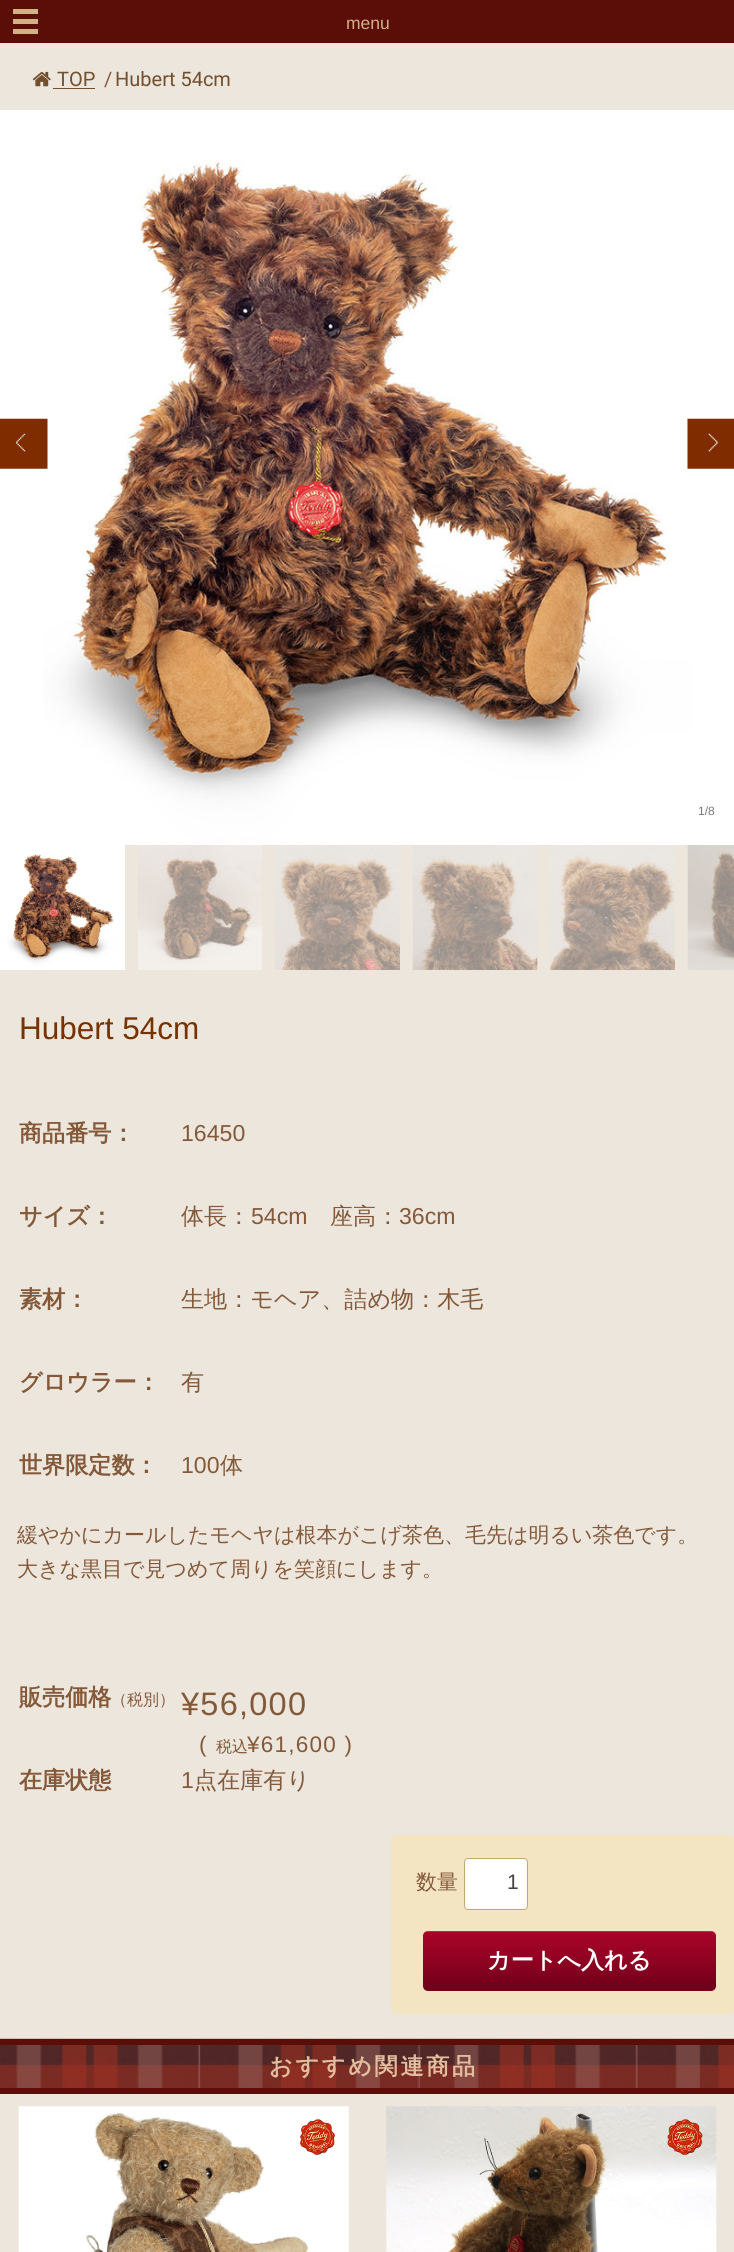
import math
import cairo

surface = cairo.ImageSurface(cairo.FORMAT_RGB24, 734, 2252)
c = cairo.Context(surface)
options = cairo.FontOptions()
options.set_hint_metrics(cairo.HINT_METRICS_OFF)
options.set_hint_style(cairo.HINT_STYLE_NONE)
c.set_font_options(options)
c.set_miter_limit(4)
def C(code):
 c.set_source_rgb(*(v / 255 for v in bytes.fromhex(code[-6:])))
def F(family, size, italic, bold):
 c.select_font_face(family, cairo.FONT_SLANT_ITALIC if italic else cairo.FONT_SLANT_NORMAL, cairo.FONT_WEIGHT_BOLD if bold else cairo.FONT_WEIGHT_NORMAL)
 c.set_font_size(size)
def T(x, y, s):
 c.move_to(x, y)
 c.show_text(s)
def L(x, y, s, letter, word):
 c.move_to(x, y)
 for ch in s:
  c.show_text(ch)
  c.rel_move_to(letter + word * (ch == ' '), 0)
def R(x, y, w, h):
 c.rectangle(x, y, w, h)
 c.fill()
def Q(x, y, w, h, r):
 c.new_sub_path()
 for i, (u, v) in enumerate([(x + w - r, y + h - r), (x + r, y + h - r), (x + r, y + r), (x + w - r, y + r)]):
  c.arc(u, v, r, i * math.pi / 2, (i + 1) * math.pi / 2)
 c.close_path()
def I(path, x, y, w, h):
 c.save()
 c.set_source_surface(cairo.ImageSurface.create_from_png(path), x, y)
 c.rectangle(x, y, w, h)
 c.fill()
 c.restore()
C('ece6dd')
c.paint()
C('5b0e08')
R(0,0,734,43)
C('d2b285')
R(13,9,25,25)
C('5b0e08')
R(13,14,25,5)
R(13,24,25,5)
F('Liberation Sans',17.5,0,0)
C('d2b285')
T(346,29,'menu')
I('1.png',32,71,19,16)
F('Roboto',20,0,0)
C('72502f')
T(57,86,'TOP')
R(53,88,42,1)
C('845939')
T(104,86,'/')
C('72502f')
T(115,86,'Hubert 54cm')
I('2.png',0,110,734,735)
I('3.png',0,418,48,51)
I('4.png',687,418,47,51)
F('Liberation Sans',12,0,0)
C('777777')
T(698,815,'1/8')
I('5.png',0,845,125,125)
I('6.png',138,845,124,125)
I('7.png',275,845,125,125)
I('8.png',412,845,126,125)
I('9.png',550,845,125,125)
I('10.png',687,845,47,125)
F('Liberation Sans',31.5,0,0)
C('763200')
T(19,1039,'Hubert 54cm')
F('WenQuanYi Zen Hei',23.1,0,1)
C('845939')
T(19,1141,'商品番号：')
F('Liberation Sans',23.1,0,0)
T(181,1141,'16450')
F('WenQuanYi Zen Hei',23.1,0,1)
T(19,1224,'サイズ：')
F('WenQuanYi Zen Hei Medium',23.1,0,0)
T(181,1224,'体長：')
F('Liberation Sans',23.1,0,0)
T(251,1224,'54cm')
F('WenQuanYi Zen Hei Medium',23.1,0,0)
T(330,1224,'座高：')
F('Liberation Sans',23.1,0,0)
T(399,1224,'36cm')
F('WenQuanYi Zen Hei',23.1,0,1)
T(19,1307,'素材：')
F('WenQuanYi Zen Hei Medium',23.1,0,0)
T(181,1307,'生地：モヘア、詰め物：木毛')
F('WenQuanYi Zen Hei',23.1,0,1)
T(19,1390,'グロウラー：')
F('WenQuanYi Zen Hei Medium',23.1,0,0)
T(181,1390,'有')
F('WenQuanYi Zen Hei',23.1,0,1)
T(19,1473,'世界限定数：')
F('Liberation Sans',23.1,0,0)
T(181,1473,'100')
F('WenQuanYi Zen Hei Medium',23.1,0,0)
T(220,1473,'体')
F('WenQuanYi Zen Hei Medium',21,0,0)
T(17,1542,'緩やかにカールしたモヘヤは根本がこげ茶色、毛先は明るい茶色です。')
T(17,1576,'大きな黒目で見つめて周りを笑顔にします。')
F('WenQuanYi Zen Hei',23.1,0,1)
T(19,1705,'販売価格')
F('WenQuanYi Zen Hei Medium',16,0,0)
T(111,1705,'（税別）')
F('Liberation Sans',32.5,0,0)
L(181,1715,'¥56,000',1.25,0)
F('Liberation Sans',22.5,0,0)
L(199,1752,'(',1.25,0)
F('WenQuanYi Zen Hei Medium',16,0,0)
T(216,1752,'税込')
F('Liberation Sans',22.5,0,0)
L(247,1752,'¥61,600 )',1.25,0)
F('WenQuanYi Zen Hei',23.1,0,1)
T(19,1788,'在庫状態')
F('Liberation Sans',23.1,0,0)
T(181,1788,'1')
F('WenQuanYi Zen Hei Medium',23.1,0,0)
T(194,1788,'点在庫有り')
C('f4e5c2')
Q(391,1835,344,179,6)
c.fill()
F('WenQuanYi Zen Hei Medium',21,0,0)
C('845939')
T(416,1889,'数量')
C('ffffff')
Q(464.5,1858.5,63,51,3.5)
c.fill_preserve()
C('c6a878')
c.set_line_width(1)
c.stroke()
F('Liberation Sans',21,0,0)
C('444444')
L(507,1889,'1',1.25,0)
gradient = cairo.LinearGradient(423,1931,423,1991)
gradient.add_color_stop_rgba(0,0.992,0.949,0.898,1)
gradient.add_color_stop_rgba(.01,0.663,0.012,0.161,1)
gradient.add_color_stop_rgba(.5,0.561,0.008,0.133,1)
gradient.add_color_stop_rgba(.99,0.427,0,0.098,1)
gradient.add_color_stop_rgba(1,0.58,0.118,0.141,1)
c.set_source(gradient)
Q(423,1931,293,60,5)
c.fill()
F('WenQuanYi Zen Hei',23.1,0,1)
C('ffffff')
T(487,1968,'カートへ入れる')
I('11.png',0,2038,734,50)
C('5b0e08')
R(0,2039,734,6)
R(0,2088,734,6)
C('e2be9e')
L(269,2074,'おすすめ関連商品',2.75,0)
I('12.png',18,2106,331,146)
I('13.png',300,2119,35,36)
I('14.png',386,2106,331,146)
I('15.png',667,2119,36,36)
surface.write_to_png('o.png')
